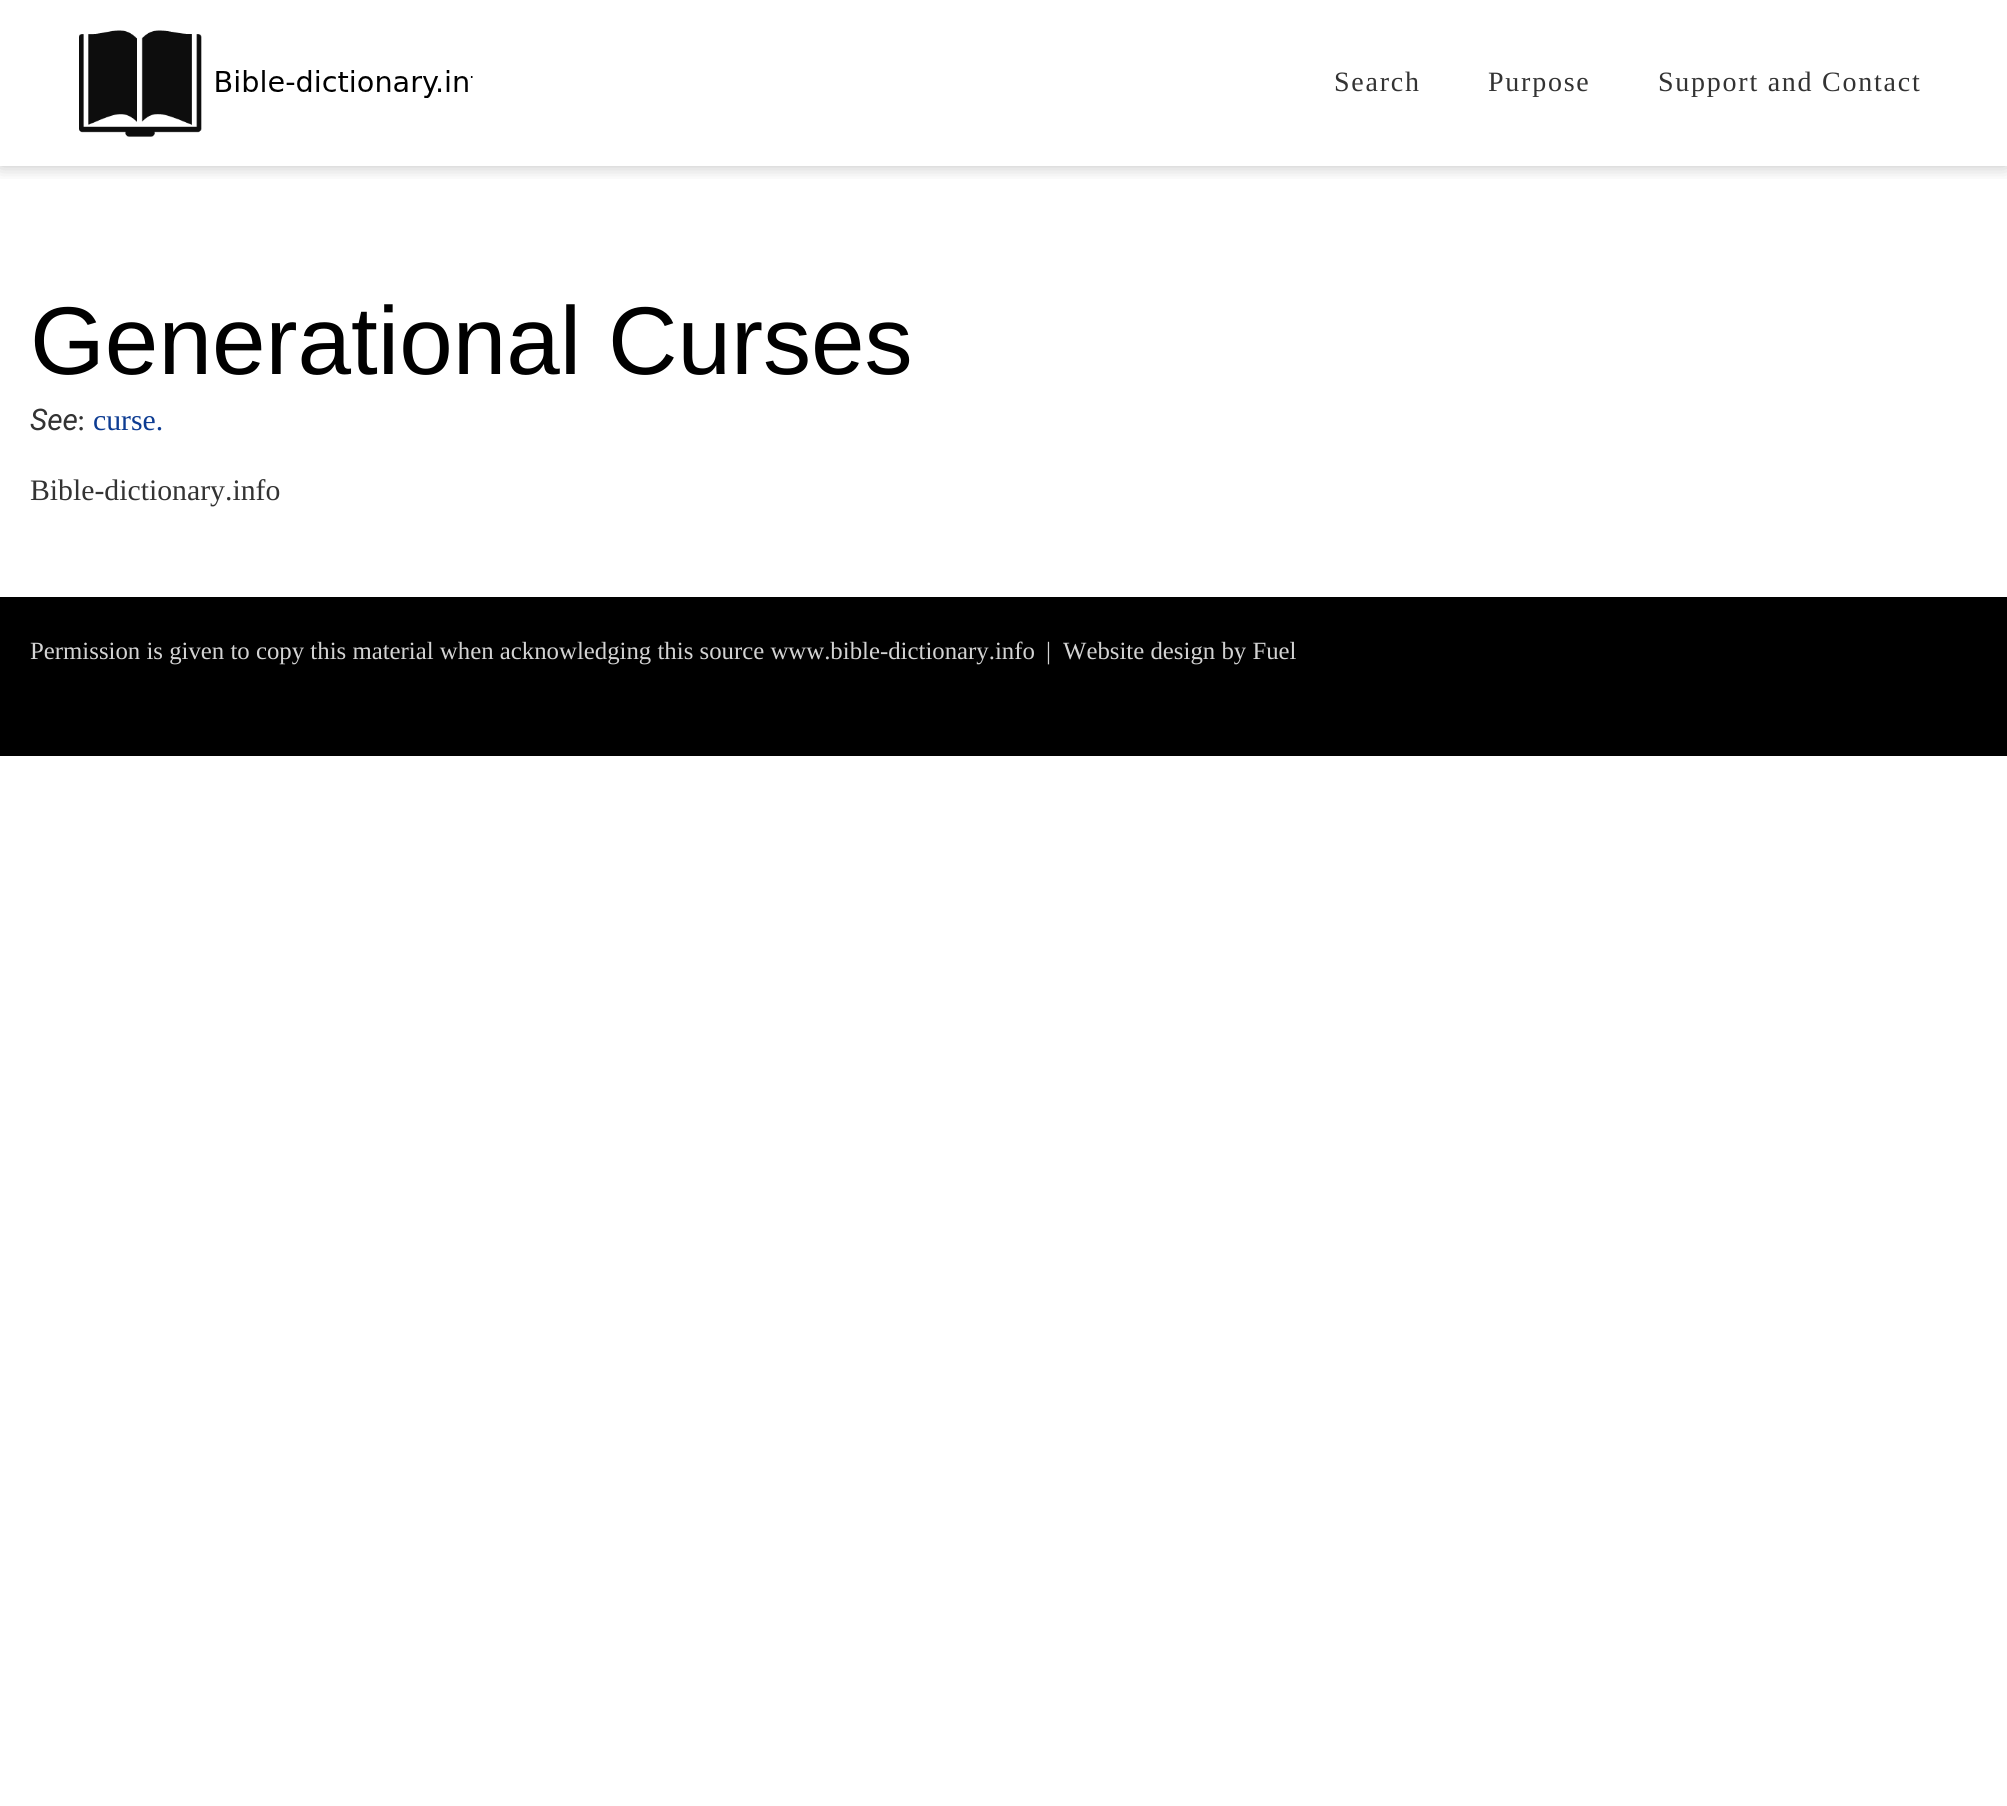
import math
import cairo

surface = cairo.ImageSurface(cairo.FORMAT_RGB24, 2007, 1806)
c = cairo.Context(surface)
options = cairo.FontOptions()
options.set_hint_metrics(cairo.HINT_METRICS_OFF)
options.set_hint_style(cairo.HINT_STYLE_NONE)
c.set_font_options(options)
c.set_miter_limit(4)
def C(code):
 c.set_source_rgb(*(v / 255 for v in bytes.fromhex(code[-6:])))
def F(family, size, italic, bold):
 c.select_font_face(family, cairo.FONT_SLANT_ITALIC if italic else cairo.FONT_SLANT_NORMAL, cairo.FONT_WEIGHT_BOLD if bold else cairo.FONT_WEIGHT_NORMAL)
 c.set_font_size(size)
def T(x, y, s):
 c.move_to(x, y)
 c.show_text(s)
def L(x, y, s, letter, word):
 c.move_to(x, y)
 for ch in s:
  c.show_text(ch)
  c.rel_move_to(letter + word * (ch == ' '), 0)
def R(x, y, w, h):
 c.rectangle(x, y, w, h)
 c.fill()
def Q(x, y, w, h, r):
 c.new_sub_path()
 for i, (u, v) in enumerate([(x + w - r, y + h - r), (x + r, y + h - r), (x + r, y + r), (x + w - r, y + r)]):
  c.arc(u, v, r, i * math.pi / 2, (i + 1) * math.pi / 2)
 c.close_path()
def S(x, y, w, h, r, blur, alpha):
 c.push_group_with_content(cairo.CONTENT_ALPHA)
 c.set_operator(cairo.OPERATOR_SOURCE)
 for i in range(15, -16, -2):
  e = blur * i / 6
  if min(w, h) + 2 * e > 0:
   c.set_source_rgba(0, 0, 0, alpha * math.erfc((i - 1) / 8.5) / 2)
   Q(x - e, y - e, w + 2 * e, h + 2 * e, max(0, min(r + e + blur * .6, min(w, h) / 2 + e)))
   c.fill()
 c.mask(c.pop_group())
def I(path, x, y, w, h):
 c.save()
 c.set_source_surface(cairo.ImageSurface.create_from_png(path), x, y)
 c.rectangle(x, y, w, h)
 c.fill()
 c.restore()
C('ffffff')
c.paint()
c.save()
c.rectangle(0,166,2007,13)
c.clip()
C('000000')
S(0,0,2007,166,0,9,.25)
c.restore()
I('1.png',79,30,394,107)
F('Liberation Serif',28,0,0)
C('333333')
L(1334,91,'Search',1.75,0)
L(1488,91,'Purpose',1.75,0)
L(1658,91,'Support and Contact',1.75,0)
F('Liberation Sans',96.25,0,0)
C('000000')
T(30,374,'Generational Curses')
F('Roboto',29.75,1,0)
C('333333')
T(30,430,'See')
F('Liberation Serif',29.75,0,0)
T(77,430,':')
C('0d3c92')
T(93,430,'curse.')
C('333333')
T(30,500,'Bible-dictionary.info')
C('000000')
R(0,597,2007,159)
F('Liberation Serif',24.8,0,0)
C('d3d3d3')
T(30,659,'Permission is given to copy this material when acknowledging this source www.bible-dictionary.info')
T(1046,659,'|')
T(1063,659,'Website design by Fuel')
surface.write_to_png('o.png')
